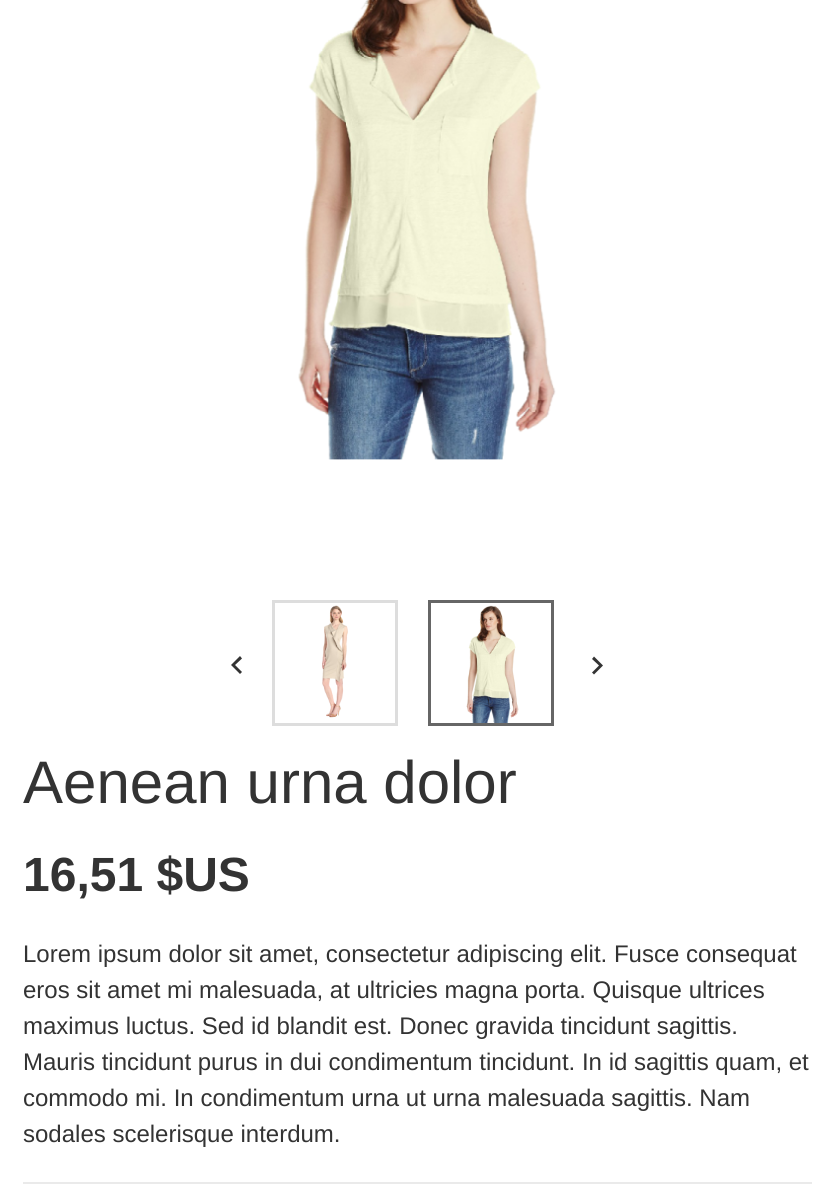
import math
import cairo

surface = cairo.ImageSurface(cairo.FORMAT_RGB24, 834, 1200)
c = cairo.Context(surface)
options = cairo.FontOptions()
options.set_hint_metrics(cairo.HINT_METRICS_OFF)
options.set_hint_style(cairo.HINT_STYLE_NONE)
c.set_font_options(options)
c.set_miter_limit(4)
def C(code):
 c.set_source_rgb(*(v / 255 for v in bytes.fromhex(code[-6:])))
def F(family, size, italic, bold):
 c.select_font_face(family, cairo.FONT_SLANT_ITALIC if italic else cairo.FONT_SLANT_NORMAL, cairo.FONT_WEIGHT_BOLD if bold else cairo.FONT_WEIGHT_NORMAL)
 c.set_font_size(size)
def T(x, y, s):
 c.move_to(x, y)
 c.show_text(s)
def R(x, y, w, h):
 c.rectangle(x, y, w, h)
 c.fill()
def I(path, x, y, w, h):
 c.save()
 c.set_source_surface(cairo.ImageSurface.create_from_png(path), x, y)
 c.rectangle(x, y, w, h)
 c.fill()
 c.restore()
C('ffffff')
c.paint()
I('1.png',298,0,258,460)
c.rectangle(273.5,601.5,123,123)
C('dddddd')
c.set_line_width(3)
c.stroke()
I('2.png',322,605,26,113)
c.rectangle(429.5,601.5,123,123)
C('666666')
c.stroke()
I('3.png',466,605,53,118)
C('333333')
c.new_path()
c.move_to(242,672)
c.line_to(240,674)
c.line_to(231,665)
c.line_to(240,656)
c.line_to(242,658.5)
c.line_to(235,665)
c.close_path()
c.fill()
c.new_path()
c.move_to(592,672.5)
c.line_to(599,665.5)
c.line_to(592,659)
c.line_to(594,656.5)
c.line_to(603,665.5)
c.line_to(594,674.5)
c.close_path()
c.fill()
F('Liberation Sans',60,0,0)
T(23,803,'Aenean urna dolor')
F('Liberation Sans',48,0,1)
T(23,891,'16,51 $US')
F('Liberation Sans',24,0,0)
T(23,962,'Lorem ipsum dolor sit amet, consectetur adipiscing elit. Fusce consequat')
T(23,998,'eros sit amet mi malesuada, at ultricies magna porta. Quisque ultrices')
T(23,1034,'maximus luctus. Sed id blandit est. Donec gravida tincidunt sagittis.')
T(23,1070,'Mauris tincidunt purus in dui condimentum tincidunt. In id sagittis quam, et')
T(23,1106,'commodo mi. In condimentum urna ut urna malesuada sagittis. Nam')
T(23,1142,'sodales scelerisque interdum.')
C('eaeaea')
R(23,1182,789,2)
surface.write_to_png('o.png')
